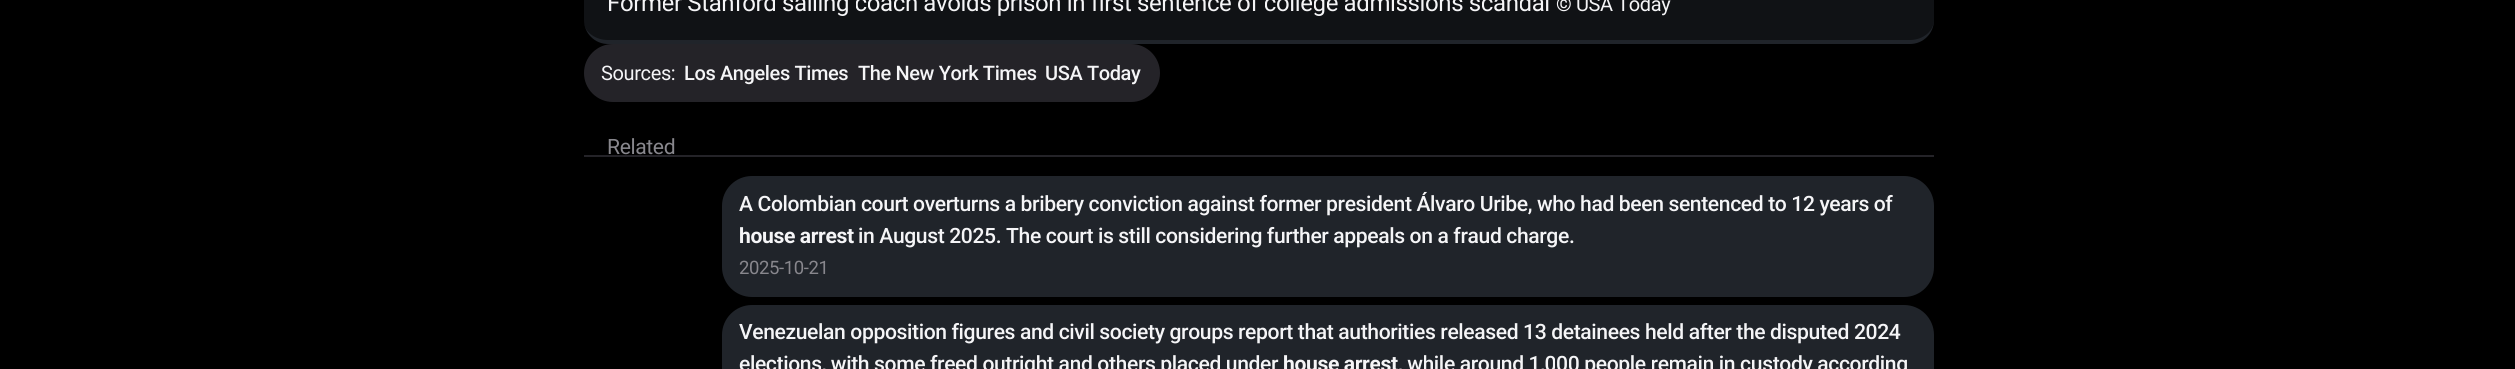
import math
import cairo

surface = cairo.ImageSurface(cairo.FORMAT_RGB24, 2515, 369)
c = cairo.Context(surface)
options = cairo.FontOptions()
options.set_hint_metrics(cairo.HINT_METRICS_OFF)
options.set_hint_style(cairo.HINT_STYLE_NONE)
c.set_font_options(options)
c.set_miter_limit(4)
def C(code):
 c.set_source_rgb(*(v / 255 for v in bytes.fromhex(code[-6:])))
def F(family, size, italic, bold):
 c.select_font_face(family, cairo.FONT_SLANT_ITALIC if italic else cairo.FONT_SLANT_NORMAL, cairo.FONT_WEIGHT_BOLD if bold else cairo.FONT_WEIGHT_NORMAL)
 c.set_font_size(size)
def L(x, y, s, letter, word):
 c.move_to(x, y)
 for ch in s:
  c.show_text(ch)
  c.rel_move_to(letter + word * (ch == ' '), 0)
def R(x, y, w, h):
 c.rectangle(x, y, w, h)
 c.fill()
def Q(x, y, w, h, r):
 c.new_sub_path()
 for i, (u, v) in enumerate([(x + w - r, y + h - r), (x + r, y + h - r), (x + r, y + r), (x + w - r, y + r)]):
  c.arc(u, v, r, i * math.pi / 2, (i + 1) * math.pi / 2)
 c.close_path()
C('000000')
c.paint()
C('20242a')
Q(584,-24,1350,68,24)
c.fill()
c.set_source_rgba(0,0,0,0.5)
c.new_path()
c.move_to(584,-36)
c.line_to(1934,-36)
c.line_to(1934,20)
c.curve_to(1934,31,1923,40,1910,40)
c.line_to(608,40)
c.curve_to(596,40,586,33,584,24)
c.close_path()
c.fill()
F('Roboto',24,0,0)
C('f5f5f7')
L(607,11,'Former Stanford sailing coach avoids prison in first sentence of college admissions scandal',-.38,0)
F('Roboto',20,0,0)
L(1556,11,'© USA Today',-.38,0)
C('242328')
Q(584,44,576,58,29)
c.fill()
C('f5f5f7')
L(601,80,'Sources:',-.38,0)
F('Roboto Medium',20,0,0)
L(684,80,'Los Angeles Times',-.38,0)
L(858,80,'The New York Times',-.38,0)
L(1045,80,'USA Today',-.38,0)
F('Roboto',21.12,0,0)
C('88878d')
L(607,154,'Related',-.38,0)
C('242328')
R(584,155,1350,2)
C('20242a')
Q(722,176,1212,121,30)
c.fill()
F('Roboto Medium',21.12,0,0)
C('f5f5f7')
L(739,211,'A Colombian court overturns a bribery conviction against former president Álvaro Uribe, who had been sentenced to 12 years of',-.38,0)
F('Roboto',21.12,0,1)
L(739,243,'house arrest',-.38,0)
F('Roboto Medium',21.12,0,0)
L(858,243,'in August 2025. The court is still considering further appeals on a fraud charge.',-.38,0)
F('Roboto',18.5,0,0)
C('88878d')
L(739,274,'2025-10-21',-.38,0)
C('20242a')
Q(722,305,1212,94,30)
c.fill()
F('Roboto Medium',21.12,0,0)
C('f5f5f7')
L(739,339,'Venezuelan opposition figures and civil society groups report that authorities released 13 detainees held after the disputed 2024',-.38,0)
L(739,371,'elections, with some freed outright and others placed under',-.38,0)
F('Roboto',21.12,0,1)
L(1283,371,'house arrest',-.38,0)
F('Roboto Medium',21.12,0,0)
L(1398,371,', while around 1,000 people remain in custody according',-.38,0)
surface.write_to_png('o.png')
